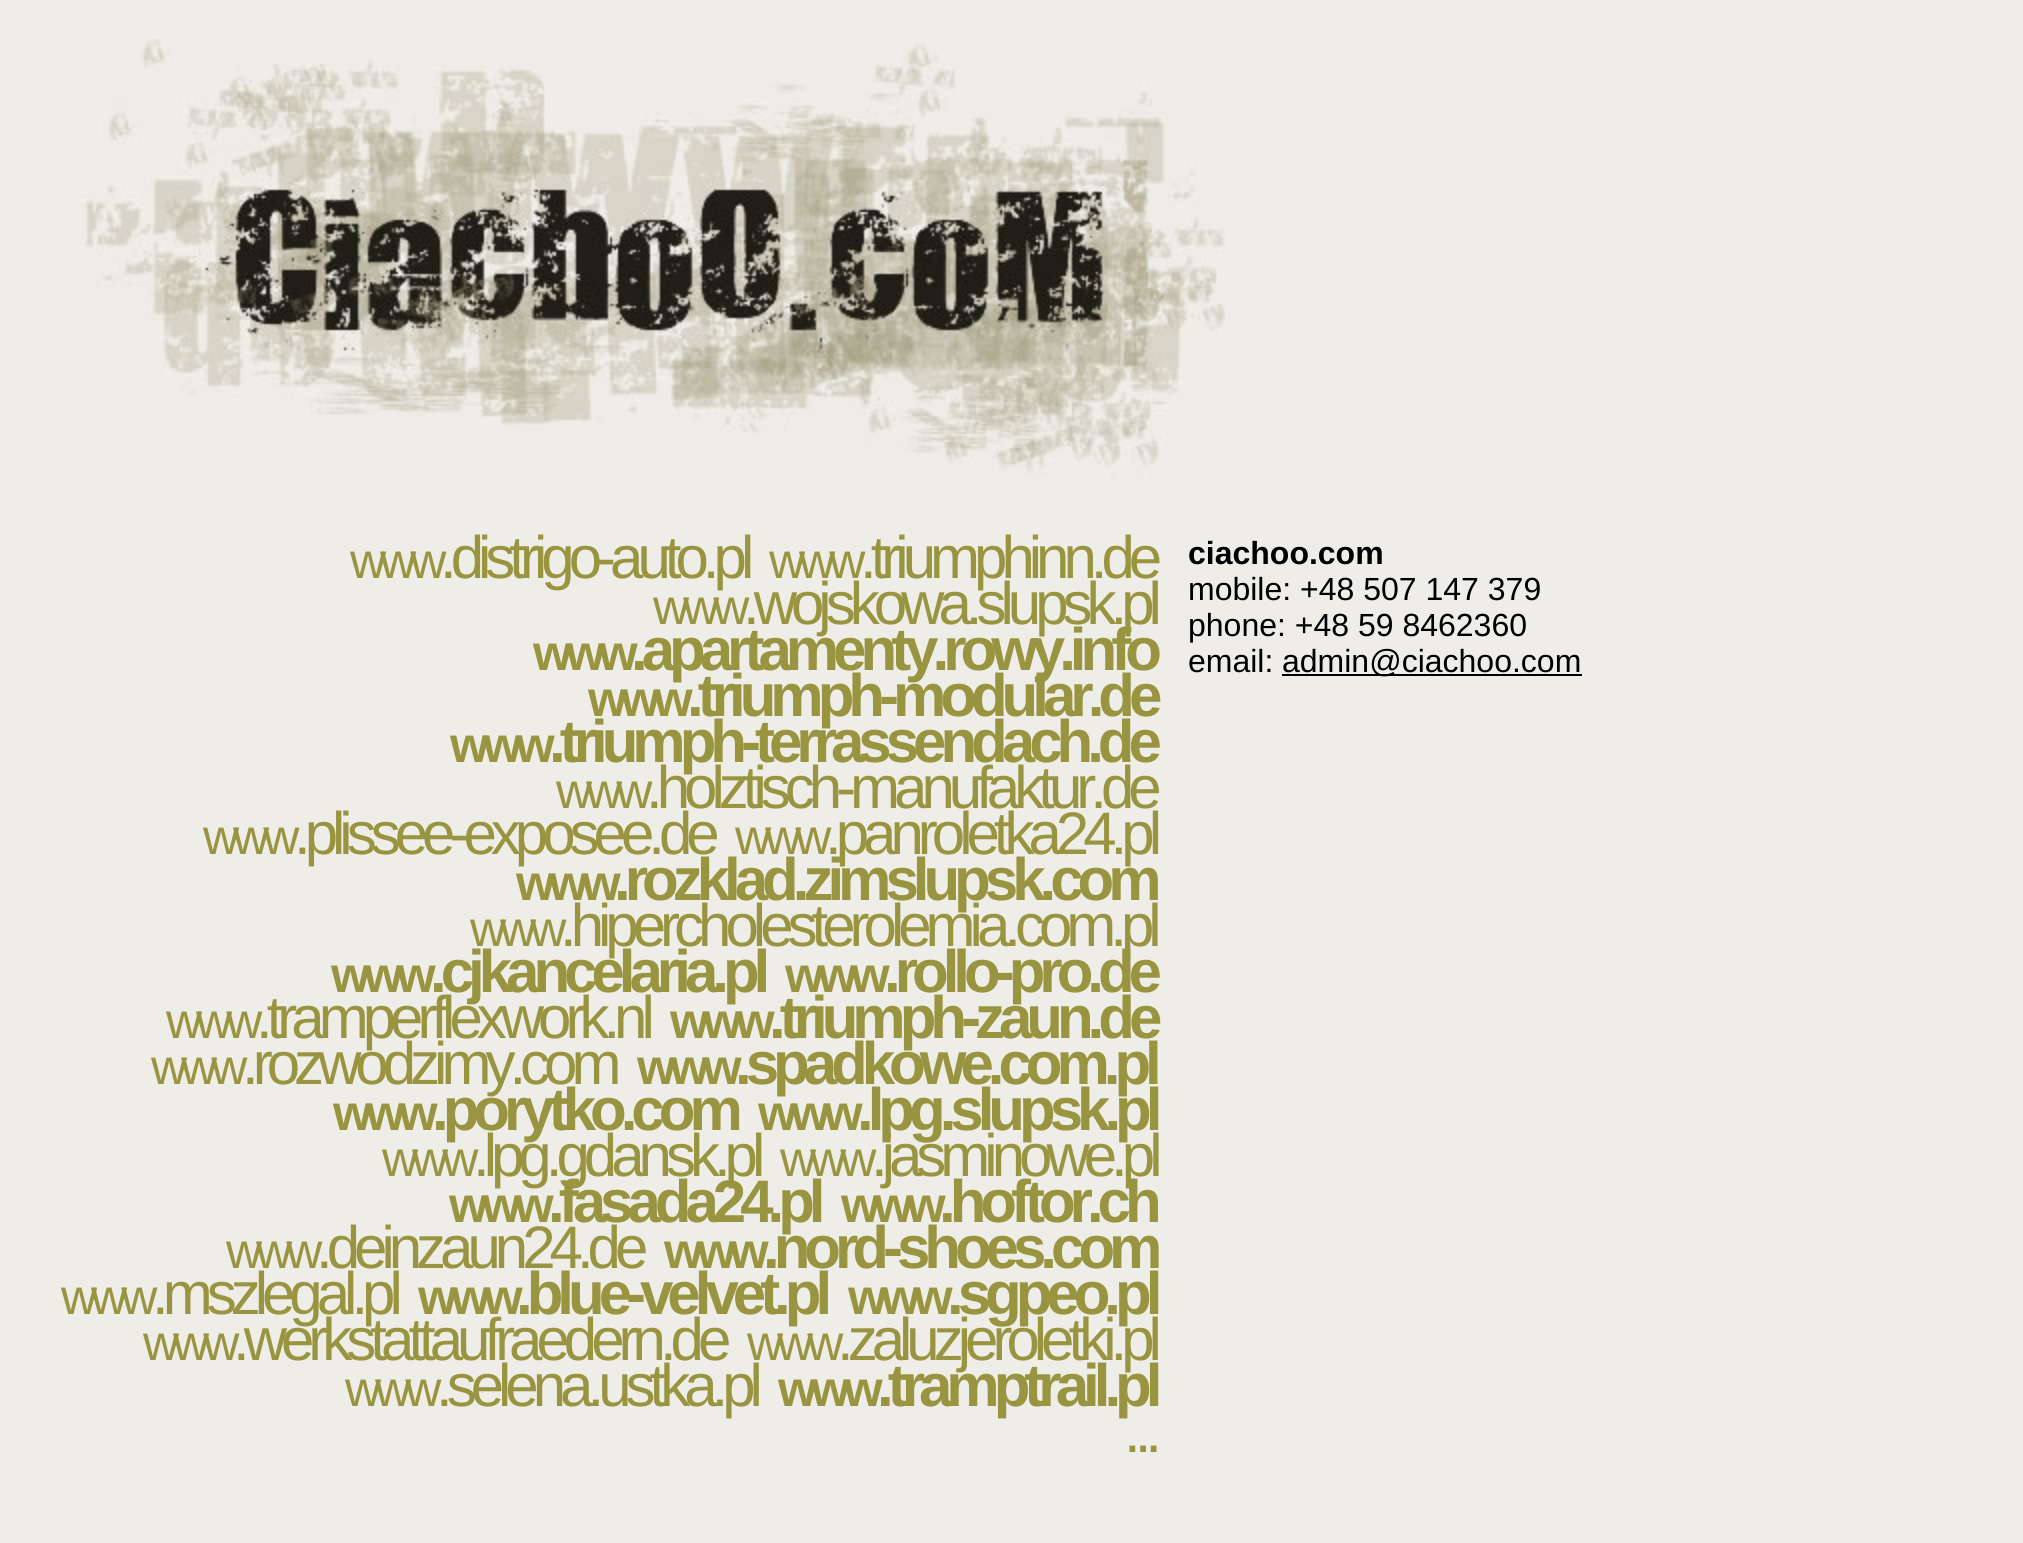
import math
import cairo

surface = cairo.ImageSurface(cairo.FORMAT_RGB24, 2023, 1543)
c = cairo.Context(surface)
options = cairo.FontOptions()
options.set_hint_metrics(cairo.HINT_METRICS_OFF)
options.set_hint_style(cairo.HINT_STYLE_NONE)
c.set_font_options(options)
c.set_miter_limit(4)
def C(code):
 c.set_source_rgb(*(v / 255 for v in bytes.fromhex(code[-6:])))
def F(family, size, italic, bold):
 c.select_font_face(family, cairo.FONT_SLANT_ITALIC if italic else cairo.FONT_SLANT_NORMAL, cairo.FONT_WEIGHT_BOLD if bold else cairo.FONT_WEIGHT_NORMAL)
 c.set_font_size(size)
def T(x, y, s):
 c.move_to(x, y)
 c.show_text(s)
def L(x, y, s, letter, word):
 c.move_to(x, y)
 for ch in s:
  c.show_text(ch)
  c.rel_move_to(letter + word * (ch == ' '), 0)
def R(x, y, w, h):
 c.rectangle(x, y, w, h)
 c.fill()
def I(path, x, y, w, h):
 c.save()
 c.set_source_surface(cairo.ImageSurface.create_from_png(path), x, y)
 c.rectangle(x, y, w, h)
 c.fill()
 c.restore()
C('eeede7')
c.paint()
I('1.png',81,39,1144,440)
F('Liberation Sans',50,0,0)
C('989440')
L(350,578,'www',-6,0)
F('Liberation Sans',60,0,0)
L(440,578,'.distrigo-auto.pl',-6,0)
F('Liberation Sans',50,0,0)
L(769,578,'www',-6,0)
F('Liberation Sans',60,0,0)
L(860,578,'.triumphinn.de',-6,0)
F('Liberation Sans',50,0,0)
L(653,624,'www',-6,0)
F('Liberation Sans',60,0,0)
L(743,624,'.wojskowa.slupsk.pl',-6,0)
F('Liberation Sans',50,0,1)
L(533,670,'www',-6,0)
F('Liberation Sans',60,0,1)
L(631,670,'.apartamenty.rowy.info',-6,0)
F('Liberation Sans',50,0,1)
L(588,716,'www',-6,0)
F('Liberation Sans',60,0,1)
L(687,716,'.triumph-modular.de',-6,0)
F('Liberation Sans',50,0,1)
L(450,762,'www',-6,0)
F('Liberation Sans',60,0,1)
L(549,762,'.triumph-terrassendach.de',-6,0)
F('Liberation Sans',50,0,0)
L(556,808,'www',-6,0)
F('Liberation Sans',60,0,0)
L(646,808,'.holztisch-manufaktur.de',-6,0)
F('Liberation Sans',50,0,0)
L(203,854,'www',-6,0)
F('Liberation Sans',60,0,0)
L(294,854,'.plissee-exposee.de',-6,0)
F('Liberation Sans',50,0,0)
L(735,854,'www',-6,0)
F('Liberation Sans',60,0,0)
L(825,854,'.panroletka24.pl',-6,0)
F('Liberation Sans',50,0,1)
L(516,900,'www',-6,0)
F('Liberation Sans',60,0,1)
L(614,900,'.rozklad.zimslupsk.com',-6,0)
F('Liberation Sans',50,0,0)
L(470,946,'www',-6,0)
F('Liberation Sans',60,0,0)
L(560,946,'.hipercholesterolemia.com.pl',-6,0)
F('Liberation Sans',50,0,1)
L(331,992,'www',-6,0)
F('Liberation Sans',60,0,1)
L(430,992,'.cjkancelaria.pl',-6,0)
F('Liberation Sans',50,0,1)
L(785,992,'www',-6,0)
F('Liberation Sans',60,0,1)
L(884,992,'.rollo-pro.de',-6,0)
F('Liberation Sans',50,0,0)
L(166,1038,'www',-6,0)
F('Liberation Sans',60,0,0)
L(256,1038,'.tramperflexwork.nl',-6,0)
F('Liberation Sans',50,0,1)
L(670,1038,'www',-6,0)
F('Liberation Sans',60,0,1)
L(769,1038,'.triumph-zaun.de',-6,0)
F('Liberation Sans',50,0,0)
L(151,1084,'www',-6,0)
F('Liberation Sans',60,0,0)
L(242,1084,'.rozwodzimy.com',-6,0)
F('Liberation Sans',50,0,1)
L(637,1084,'www',-6,0)
F('Liberation Sans',60,0,1)
L(735,1084,'.spadkowe.com.pl',-6,0)
F('Liberation Sans',50,0,1)
L(333,1130,'www',-6,0)
F('Liberation Sans',60,0,1)
L(432,1130,'.porytko.com',-6,0)
F('Liberation Sans',50,0,1)
L(758,1130,'www',-6,0)
F('Liberation Sans',60,0,1)
L(857,1130,'.lpg.slupsk.pl',-6,0)
F('Liberation Sans',50,0,0)
L(382,1176,'www',-6,0)
F('Liberation Sans',60,0,0)
L(473,1176,'.lpg.gdansk.pl',-6,0)
F('Liberation Sans',50,0,0)
L(780,1176,'www',-6,0)
F('Liberation Sans',60,0,0)
L(871,1176,'.jasminowe.pl',-6,0)
F('Liberation Sans',50,0,1)
L(449,1222,'www',-6,0)
F('Liberation Sans',60,0,1)
L(548,1222,'.fasada24.pl',-6,0)
F('Liberation Sans',50,0,1)
L(841,1222,'www',-6,0)
F('Liberation Sans',60,0,1)
L(939,1222,'.hoftor.ch',-6,0)
F('Liberation Sans',50,0,0)
L(226,1268,'www',-6,0)
F('Liberation Sans',60,0,0)
L(316,1268,'.deinzaun24.de',-6,0)
F('Liberation Sans',50,0,1)
L(664,1268,'www',-6,0)
F('Liberation Sans',60,0,1)
L(763,1268,'.nord-shoes.com',-6,0)
F('Liberation Sans',50,0,0)
L(61,1314,'www',-6,0)
F('Liberation Sans',60,0,0)
L(152,1314,'.mszlegal.pl',-6,0)
F('Liberation Sans',50,0,1)
L(418,1314,'www',-6,0)
F('Liberation Sans',60,0,1)
L(516,1314,'.blue-velvet.pl',-6,0)
F('Liberation Sans',50,0,1)
L(848,1314,'www',-6,0)
F('Liberation Sans',60,0,1)
L(947,1314,'.sgpeo.pl',-6,0)
F('Liberation Sans',50,0,0)
L(143,1360,'www',-6,0)
F('Liberation Sans',60,0,0)
L(233,1360,'.werkstattaufraedern.de',-6,0)
F('Liberation Sans',50,0,0)
L(747,1360,'www',-6,0)
F('Liberation Sans',60,0,0)
L(837,1360,'.zaluzjeroletki.pl',-6,0)
F('Liberation Sans',50,0,0)
L(345,1406,'www',-6,0)
F('Liberation Sans',60,0,0)
L(436,1406,'.selena.ustka.pl',-6,0)
F('Liberation Sans',50,0,1)
L(778,1406,'www',-6,0)
F('Liberation Sans',60,0,1)
L(877,1406,'.tramptrail.pl',-6,0)
F('Liberation Sans',60,0,0)
L(1124,1452,'...',-6,0)
F('Liberation Sans',32,0,1)
C('000000')
T(1188,564,'ciachoo.com')
F('Liberation Sans',32,0,0)
T(1188,600,'mobile: +48 507 147 379')
T(1188,636,'phone: +48 59 8462360')
T(1188,672,'email:')
R(1282,674,300,2)
T(1282,672,'admin@ciachoo.com')
surface.write_to_png('o.png')
